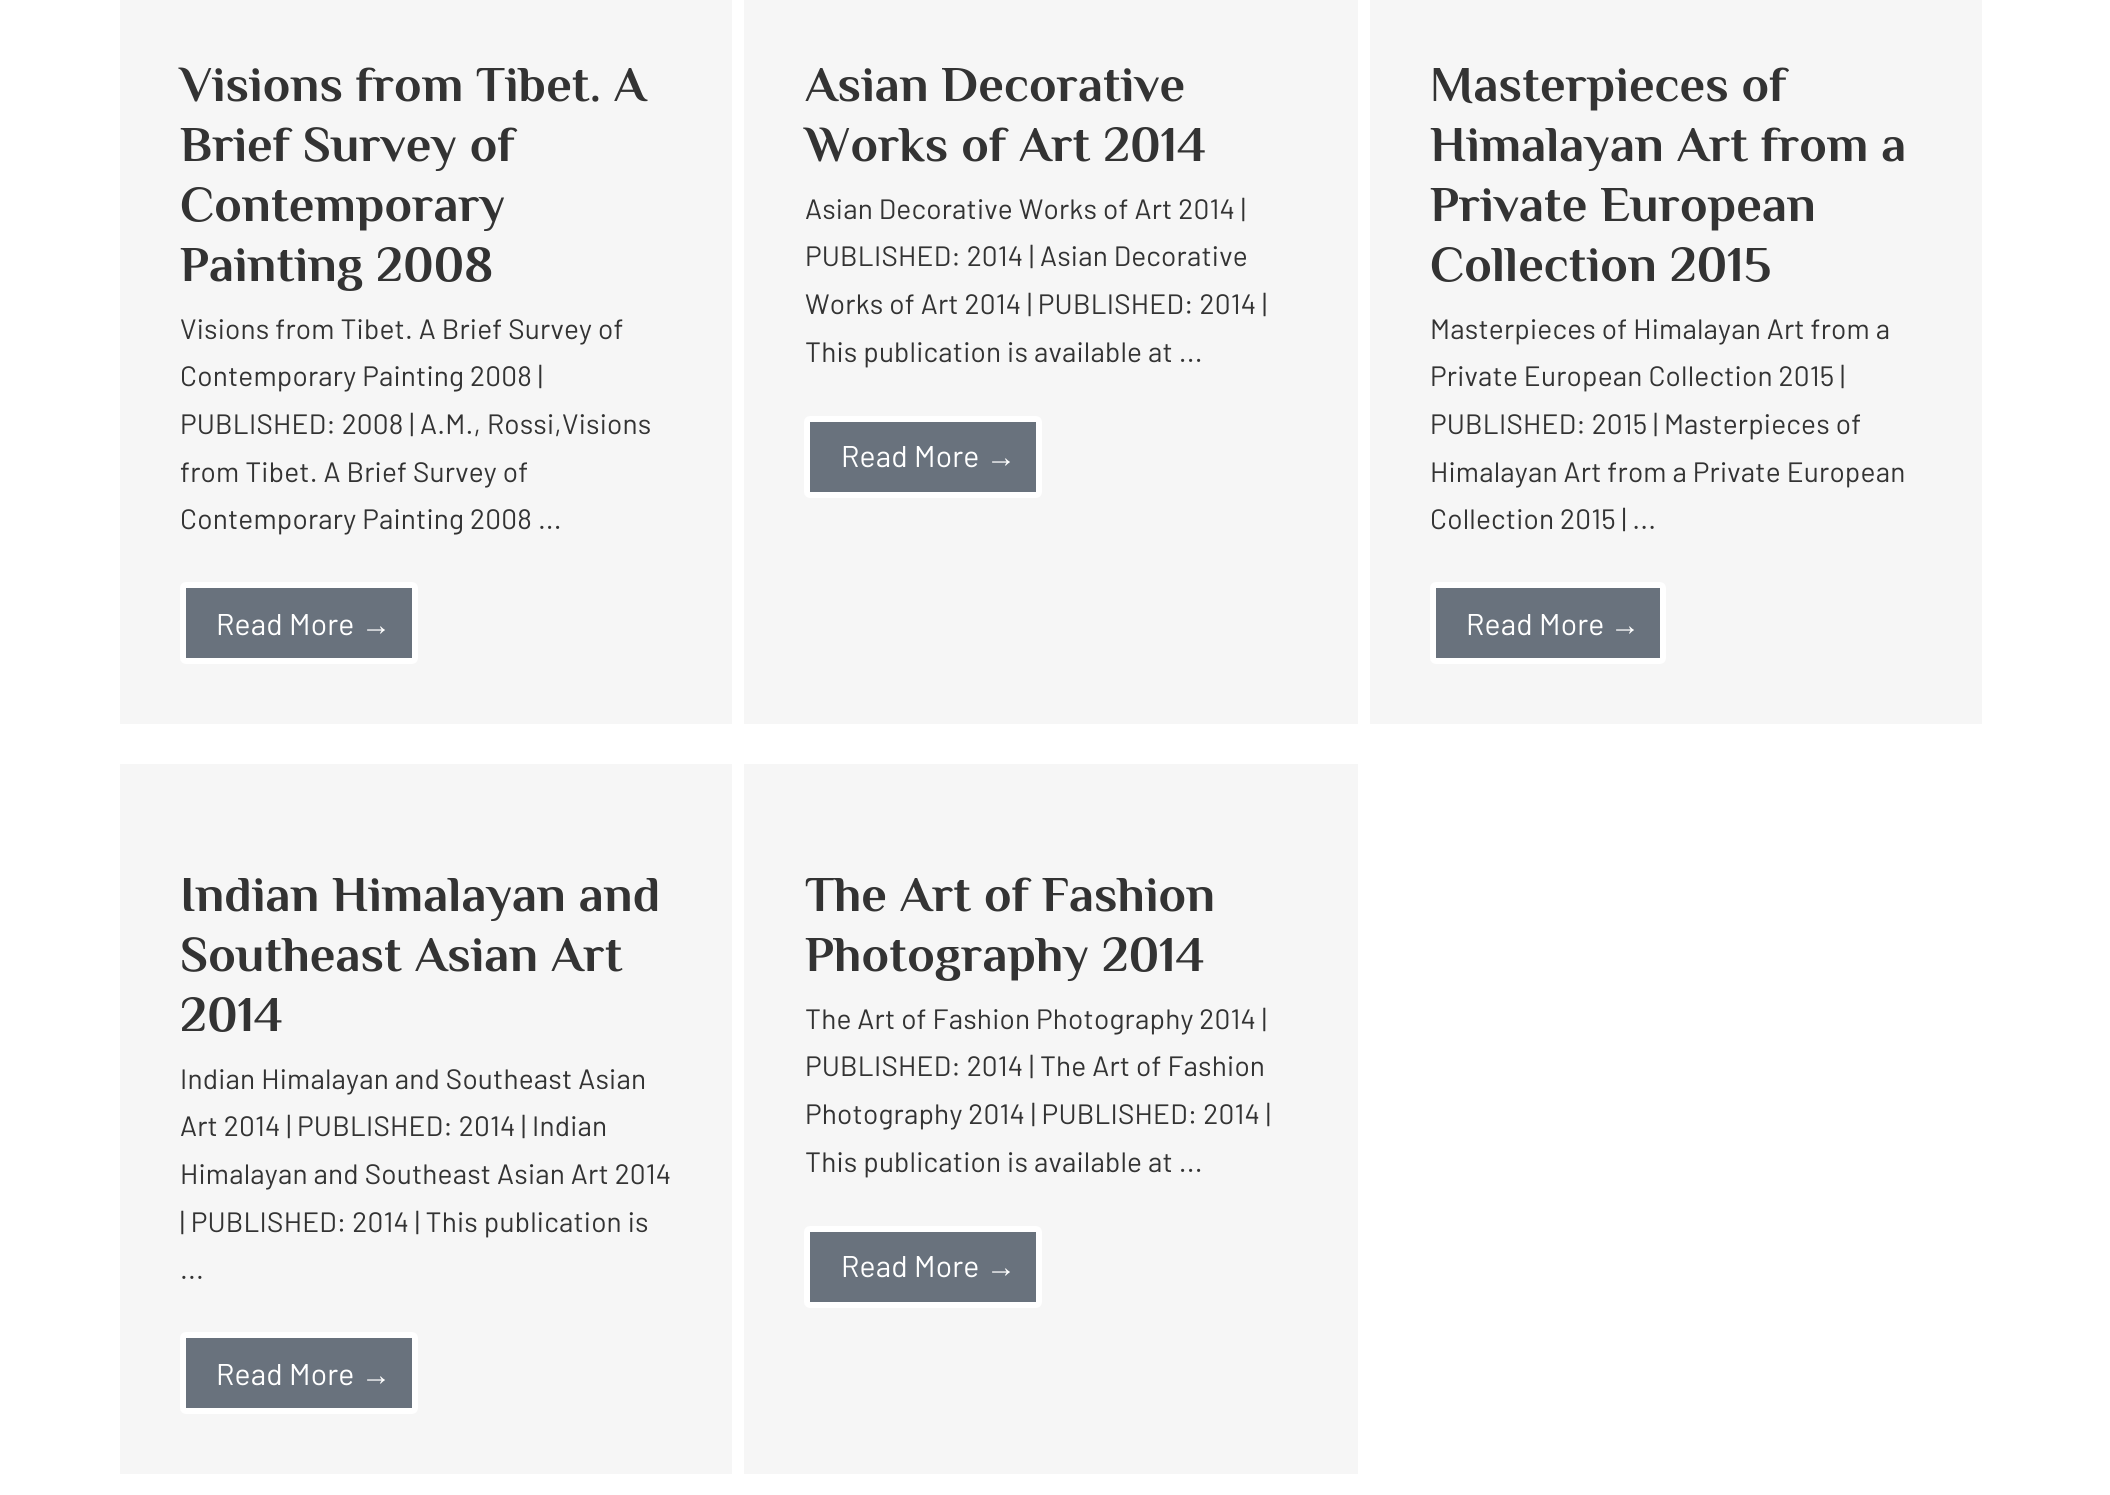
import math
import cairo

surface = cairo.ImageSurface(cairo.FORMAT_RGB24, 2110, 1495)
c = cairo.Context(surface)
options = cairo.FontOptions()
options.set_hint_metrics(cairo.HINT_METRICS_OFF)
options.set_hint_style(cairo.HINT_STYLE_NONE)
c.set_font_options(options)
c.set_miter_limit(4)
def C(code):
 c.set_source_rgb(*(v / 255 for v in bytes.fromhex(code[-6:])))
def F(family, size, italic, bold):
 c.select_font_face(family, cairo.FONT_SLANT_ITALIC if italic else cairo.FONT_SLANT_NORMAL, cairo.FONT_WEIGHT_BOLD if bold else cairo.FONT_WEIGHT_NORMAL)
 c.set_font_size(size)
def L(x, y, s, letter, word):
 c.move_to(x, y)
 for ch in s:
  c.show_text(ch)
  c.rel_move_to(letter + word * (ch == ' '), 0)
def R(x, y, w, h):
 c.rectangle(x, y, w, h)
 c.fill()
def Q(x, y, w, h, r):
 c.new_sub_path()
 for i, (u, v) in enumerate([(x + w - r, y + h - r), (x + r, y + h - r), (x + r, y + r), (x + w - r, y + r)]):
  c.arc(u, v, r, i * math.pi / 2, (i + 1) * math.pi / 2)
 c.close_path()
C('ffffff')
c.paint()
C('f6f6f6')
R(120,0,612,724)
F('Philosopher',50,0,1)
C('333333')
L(180,101,'Visions from Tibet. A',.2,0)
L(180,161,'Brief Survey of',.2,0)
L(180,221,'Contemporary',.2,0)
L(180,281,'Painting 2008',.2,0)
F('Barlow',28,0,0)
L(180,339,'Visions from Tibet. A Brief Survey of',.2,0)
L(180,386,'Contemporary Painting 2008 |',.2,0)
L(180,434,'PUBLISHED: 2008 | A.M., Rossi,Visions',.2,0)
L(180,482,'from Tibet. A Brief Survey of',.2,0)
L(180,529,'Contemporary Painting 2008 ...',.2,0)
C('69727d')
Q(183,585,232,76,3)
c.fill_preserve()
C('ffffff')
c.set_line_width(6)
c.stroke()
F('Barlow',30,0,0)
L(216,635,'Read More',.2,0)
F('Liberation Sans',30,0,0)
L(361,635,'→',.2,0)
C('f6f6f6')
R(744,0,614,724)
F('Philosopher',50,0,1)
C('333333')
L(805,101,'Asian Decorative',.2,0)
L(805,161,'Works of Art 2014',.2,0)
F('Barlow',28,0,0)
L(805,219,'Asian Decorative Works of Art 2014 |',.2,0)
L(805,266,'PUBLISHED: 2014 | Asian Decorative',.2,0)
L(805,314,'Works of Art 2014 | PUBLISHED: 2014 |',.2,0)
L(805,362,'This publication is available at ...',.2,0)
C('69727d')
Q(807,419,232,76,3)
c.fill_preserve()
C('ffffff')
c.stroke()
F('Barlow',30,0,0)
L(841,467,'Read More',.2,0)
F('Liberation Sans',30,0,0)
L(986,467,'→',.2,0)
C('f6f6f6')
R(1370,0,612,724)
F('Philosopher',50,0,1)
C('333333')
L(1430,101,'Masterpieces of',.2,0)
L(1430,161,'Himalayan Art from a',.2,0)
L(1430,221,'Private European',.2,0)
L(1430,281,'Collection 2015',.2,0)
F('Barlow',28,0,0)
L(1430,339,'Masterpieces of Himalayan Art from a',.2,0)
L(1430,386,'Private European Collection 2015 |',.2,0)
L(1430,434,'PUBLISHED: 2015 | Masterpieces of',.2,0)
L(1430,482,'Himalayan Art from a Private European',.2,0)
L(1430,529,'Collection 2015 | ...',.2,0)
C('69727d')
Q(1433,585,230,76,3)
c.fill_preserve()
C('ffffff')
c.stroke()
F('Barlow',30,0,0)
L(1466,635,'Read More',.2,0)
F('Liberation Sans',30,0,0)
L(1610,635,'→',.2,0)
C('f6f6f6')
R(120,764,612,710)
F('Philosopher',50,0,1)
C('333333')
L(180,911,'Indian Himalayan and',.2,0)
L(180,971,'Southeast Asian Art',.2,0)
L(180,1031,'2014',.2,0)
F('Barlow',28,0,0)
L(180,1089,'Indian Himalayan and Southeast Asian',.2,0)
L(180,1136,'Art 2014 | PUBLISHED: 2014 | Indian',.2,0)
L(180,1184,'Himalayan and Southeast Asian Art 2014',.2,0)
L(180,1232,'| PUBLISHED: 2014 | This publication is',.2,0)
L(180,1279,'...',.2,0)
C('69727d')
Q(183,1335,232,76,3)
c.fill_preserve()
C('ffffff')
c.stroke()
F('Barlow',30,0,0)
L(216,1385,'Read More',.2,0)
F('Liberation Sans',30,0,0)
L(361,1385,'→',.2,0)
C('f6f6f6')
R(744,764,614,710)
F('Philosopher',50,0,1)
C('333333')
L(805,911,'The Art of Fashion',.2,0)
L(805,971,'Photography 2014',.2,0)
F('Barlow',28,0,0)
L(805,1029,'The Art of Fashion Photography 2014 |',.2,0)
L(805,1076,'PUBLISHED: 2014 | The Art of Fashion',.2,0)
L(805,1124,'Photography 2014 | PUBLISHED: 2014 |',.2,0)
L(805,1172,'This publication is available at ...',.2,0)
C('69727d')
Q(807,1229,232,76,3)
c.fill_preserve()
C('ffffff')
c.stroke()
F('Barlow',30,0,0)
L(841,1277,'Read More',.2,0)
F('Liberation Sans',30,0,0)
L(986,1277,'→',.2,0)
surface.write_to_png('o.png')
